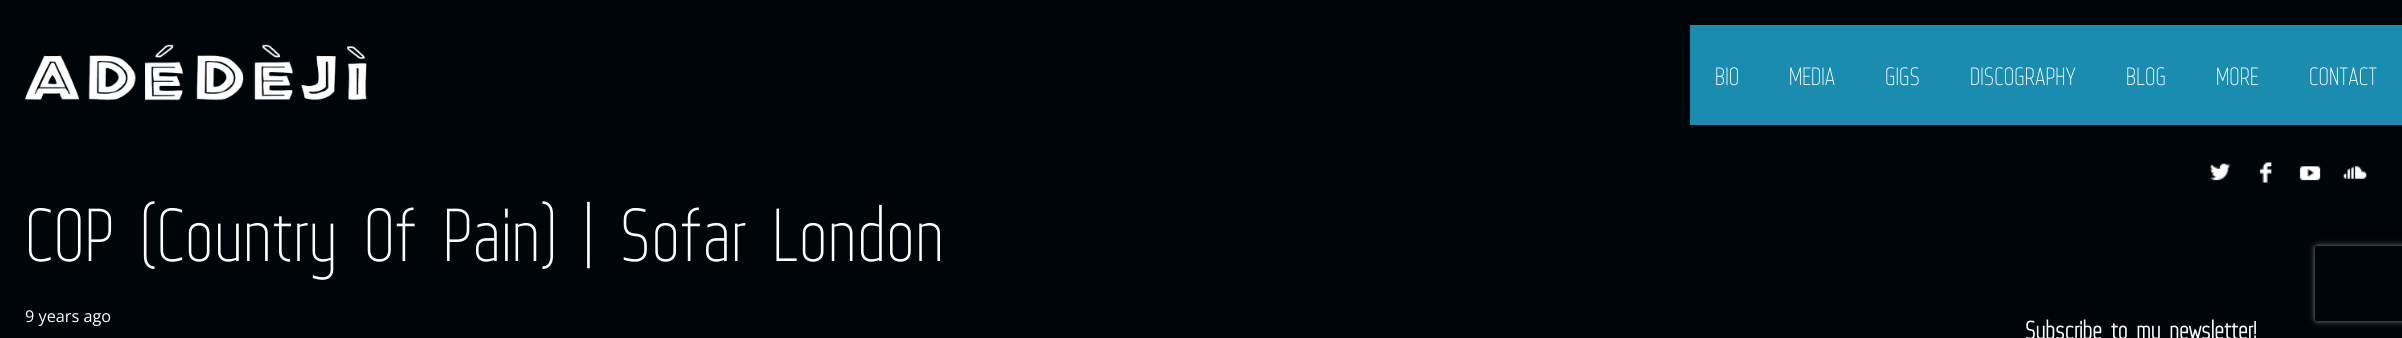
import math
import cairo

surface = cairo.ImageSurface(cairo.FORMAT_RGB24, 2402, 338)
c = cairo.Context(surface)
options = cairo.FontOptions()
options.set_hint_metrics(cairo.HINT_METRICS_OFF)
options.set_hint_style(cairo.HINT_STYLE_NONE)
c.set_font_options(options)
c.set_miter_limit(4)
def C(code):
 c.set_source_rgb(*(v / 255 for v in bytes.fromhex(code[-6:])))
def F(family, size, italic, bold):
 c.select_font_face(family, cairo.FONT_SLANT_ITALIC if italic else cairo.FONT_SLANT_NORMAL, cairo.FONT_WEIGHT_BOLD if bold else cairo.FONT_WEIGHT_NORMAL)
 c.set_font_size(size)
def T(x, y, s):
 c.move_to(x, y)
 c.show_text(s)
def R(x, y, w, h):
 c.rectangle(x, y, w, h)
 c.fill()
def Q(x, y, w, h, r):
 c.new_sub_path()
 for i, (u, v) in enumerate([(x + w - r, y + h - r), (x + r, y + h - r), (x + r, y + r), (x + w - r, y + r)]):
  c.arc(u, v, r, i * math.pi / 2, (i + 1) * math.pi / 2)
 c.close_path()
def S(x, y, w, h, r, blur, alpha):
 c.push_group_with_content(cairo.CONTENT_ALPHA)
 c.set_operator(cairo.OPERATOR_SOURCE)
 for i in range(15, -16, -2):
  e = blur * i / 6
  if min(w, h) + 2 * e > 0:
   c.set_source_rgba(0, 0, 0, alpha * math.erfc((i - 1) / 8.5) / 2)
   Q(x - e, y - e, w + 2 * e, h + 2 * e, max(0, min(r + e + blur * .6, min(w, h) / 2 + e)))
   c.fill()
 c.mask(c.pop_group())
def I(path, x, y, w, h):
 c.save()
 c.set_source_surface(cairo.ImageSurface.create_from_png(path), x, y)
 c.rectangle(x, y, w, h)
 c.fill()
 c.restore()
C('00050a')
c.paint()
I('1.png',25,44,342,57)
C('198caf')
R(1690,25,712,100)
F('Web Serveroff',25,0,0)
C('ffffff')
T(1715,85,'BIO')
T(1789,85,'MEDIA')
T(1885,85,'GIGS')
T(1970,85,'DISCOGRAPHY')
T(2126,85,'BLOG')
T(2216,85,'MORE')
T(2309,85,'CONTACT')
I('2.png',2210,163,21,18)
I('3.png',2259,162,13,21)
I('4.png',2299,166,22,15)
I('5.png',2343,166,24,13)
F('Web Serveroff',74.75,0,0)
T(25,261,'COP (Country Of Pain) | Sofar London')
F('Open Sans',16.25,0,0)
T(25,322,'9 years ago')
F('Web Serveroff',25,0,1)
T(2025,339,'Subscribe to my newsletter!')
c.save()
c.set_fill_rule(cairo.FILL_RULE_EVEN_ODD)
c.new_path()
c.move_to(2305,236)
c.line_to(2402,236)
c.line_to(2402,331)
c.line_to(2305,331)
c.close_path()
c.move_to(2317.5,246)
c.line_to(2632.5,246)
c.curve_to(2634,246,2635,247,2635,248.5)
c.line_to(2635,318.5)
c.curve_to(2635,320,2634,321,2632.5,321)
c.line_to(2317.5,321)
c.curve_to(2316,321,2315,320,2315,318.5)
c.line_to(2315,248.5)
c.curve_to(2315,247,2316,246,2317.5,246)
c.close_path()
c.clip()
C('808080')
S(2315,246,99,75,2.5,3,1)
c.restore()
surface.write_to_png('o.png')
